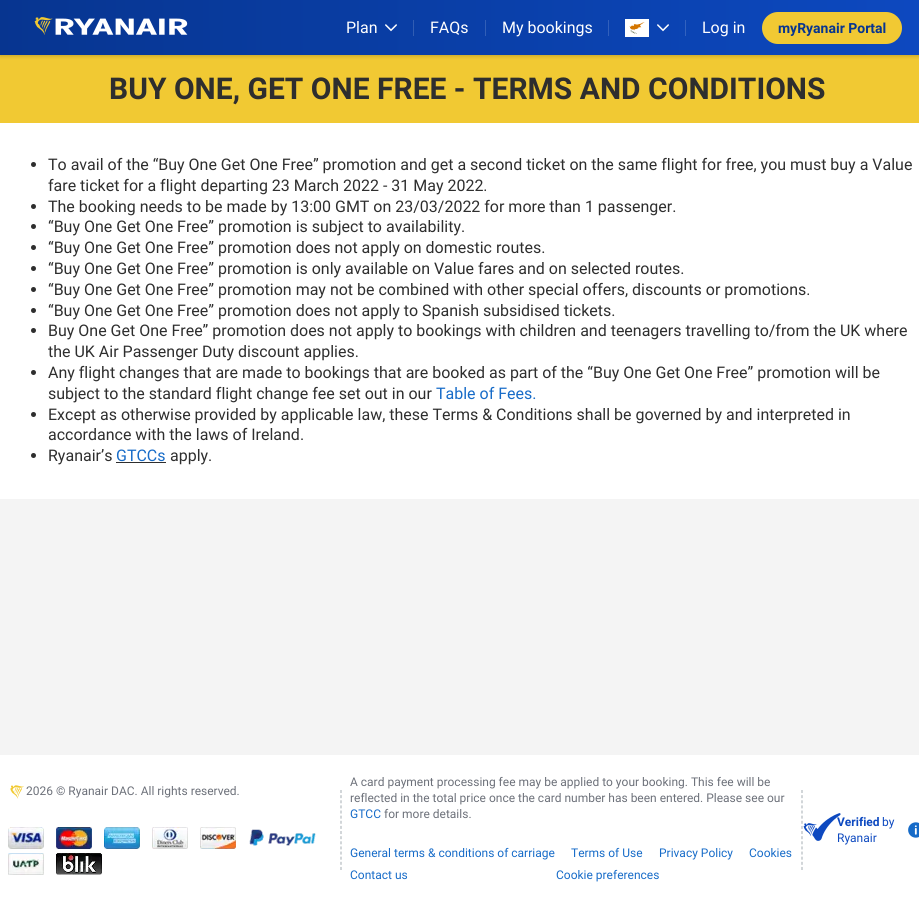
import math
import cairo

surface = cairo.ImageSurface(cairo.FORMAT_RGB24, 919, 906)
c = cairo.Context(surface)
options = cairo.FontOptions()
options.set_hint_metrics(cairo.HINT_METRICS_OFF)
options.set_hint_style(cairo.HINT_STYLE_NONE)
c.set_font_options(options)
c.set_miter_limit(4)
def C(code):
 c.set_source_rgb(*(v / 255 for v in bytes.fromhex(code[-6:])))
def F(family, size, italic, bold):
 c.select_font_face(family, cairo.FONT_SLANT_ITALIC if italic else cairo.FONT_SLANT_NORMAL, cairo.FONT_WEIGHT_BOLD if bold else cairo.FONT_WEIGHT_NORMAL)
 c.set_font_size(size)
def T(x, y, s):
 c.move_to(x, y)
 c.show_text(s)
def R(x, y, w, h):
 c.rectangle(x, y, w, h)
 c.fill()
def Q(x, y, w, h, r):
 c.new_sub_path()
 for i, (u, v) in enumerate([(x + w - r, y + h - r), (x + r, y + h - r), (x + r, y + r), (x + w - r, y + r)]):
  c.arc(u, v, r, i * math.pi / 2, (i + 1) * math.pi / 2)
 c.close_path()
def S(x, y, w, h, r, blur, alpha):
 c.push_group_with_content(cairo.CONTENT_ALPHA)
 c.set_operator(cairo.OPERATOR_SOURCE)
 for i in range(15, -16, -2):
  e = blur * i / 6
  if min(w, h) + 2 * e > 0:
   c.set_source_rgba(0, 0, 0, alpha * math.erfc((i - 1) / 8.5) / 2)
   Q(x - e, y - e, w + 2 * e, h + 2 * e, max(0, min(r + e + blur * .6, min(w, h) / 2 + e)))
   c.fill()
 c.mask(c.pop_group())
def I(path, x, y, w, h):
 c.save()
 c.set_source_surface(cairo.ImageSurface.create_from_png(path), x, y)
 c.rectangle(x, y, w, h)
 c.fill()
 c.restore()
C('f4f4f4')
c.paint()
C('f1c933')
R(0,55,919,68)
C('000000')
S(0,1,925,55,0,2,.2)
gradient = cairo.LinearGradient(0,28,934,27)
gradient.add_color_stop_rgba(0,0.027,0.208,0.565,1)
gradient.add_color_stop_rgba(1,0.051,0.286,0.753,1)
c.set_source(gradient)
R(0,0,919,55)
I('1.png',34,17,154,18)
F('Roboto',16,0,0)
C('ffffff')
T(346,33,'Plan')
I('2.png',385,24,12,8)
C('315db3')
R(413,20,1,16)
C('ffffff')
T(430,33,'FAQs')
C('315eb7')
R(485,20,1,16)
C('ffffff')
T(502,33,'My bookings')
C('3260bc')
R(608,20,1,16)
I('3.png',625,19,24,18)
I('4.png',657,24,12,8)
C('3262bf')
R(685,20,1,16)
C('ffffff')
T(702,33,'Log in')
C('f1c933')
Q(762,12,140,32,16)
c.fill()
F('Roboto',14,0,1)
C('073590')
T(778,33,'myRyanair Portal')
F('Roboto',30,0,1)
C('2e2e2e')
T(109,99,'BUY ONE, GET ONE FREE - TERMS AND CONDITIONS')
C('ffffff')
R(0,123,919,376)
C('2e2e2e')
c.new_path()
c.arc(33.5,164.5,2.5,0,2 * math.pi)
c.fill()
F('Roboto',16,0,0)
T(48,170,'To avail of the “Buy One Get One Free” promotion and get a second ticket on the same flight for free, you must buy a Value')
T(48,191,'fare ticket for a flight departing 23 March 2022 - 31 May 2022.')
c.new_path()
c.arc(33.5,206.5,2.5,0,2 * math.pi)
c.fill()
T(48,212,'The booking needs to be made by 13:00 GMT on 23/03/2022 for more than 1 passenger.')
c.new_path()
c.arc(33.5,226.5,2.5,0,2 * math.pi)
c.fill()
T(48,232,'“Buy One Get One Free” promotion is subject to availability.')
c.new_path()
c.arc(33.5,247.5,2.5,0,2 * math.pi)
c.fill()
T(48,253,'“Buy One Get One Free” promotion does not apply on domestic routes.')
c.new_path()
c.arc(33.5,268.5,2.5,0,2 * math.pi)
c.fill()
T(48,274,'“Buy One Get One Free” promotion is only available on Value fares and on selected routes.')
c.new_path()
c.arc(33.5,289.5,2.5,0,2 * math.pi)
c.fill()
T(48,295,'“Buy One Get One Free” promotion may not be combined with other special offers, discounts or promotions.')
c.new_path()
c.arc(33.5,310.5,2.5,0,2 * math.pi)
c.fill()
T(48,316,'“Buy One Get One Free” promotion does not apply to Spanish subsidised tickets.')
c.new_path()
c.arc(33.5,330.5,2.5,0,2 * math.pi)
c.fill()
T(48,336,'Buy One Get One Free” promotion does not apply to bookings with children and teenagers travelling to/from the UK where')
T(48,357,'the UK Air Passenger Duty discount applies.')
c.new_path()
c.arc(33.5,372.5,2.5,0,2 * math.pi)
c.fill()
T(48,378,'Any flight changes that are made to bookings that are booked as part of the “Buy One Get One Free” promotion will be')
T(48,399,'subject to the standard flight change fee set out in our')
C('166bc8')
T(436,399,'Table of Fees.')
C('2e2e2e')
c.new_path()
c.arc(33.5,414.5,2.5,0,2 * math.pi)
c.fill()
T(48,420,'Except as otherwise provided by applicable law, these Terms & Conditions shall be governed by and interpreted in')
T(48,440,'accordance with the laws of Ireland.')
c.new_path()
c.arc(33.5,455.5,2.5,0,2 * math.pi)
c.fill()
T(48,461,'Ryanair’s')
C('166bc8')
T(116,461,'GTCCs')
C('2e2e2e')
R(116,462,50,1)
T(170,461,'apply.')
C('ffffff')
R(0,755,919,151)
I('5.png',10,785,14,14)
F('Roboto',12,0,0)
C('6c7079')
T(26,795,'2026 © Ryanair DAC. All rights reserved.')
I('6.png',8,827,36,22)
I('7.png',56,827,36,22)
I('8.png',104,827,36,22)
I('9.png',152,827,36,22)
I('10.png',200,827,36,22)
I('11.png',249,829,67,17)
I('12.png',8,853,36,22)
I('13.png',56,853,46,22)
c.new_path()
c.move_to(341.5,790)
c.line_to(341.5,870)
C('d2d6d9')
c.set_line_width(1)
c.set_dash([3,2.13])
c.stroke()
R(340,869,2,1)
c.new_path()
c.move_to(340.5,790)
c.line_to(340.5,870)
c.stroke()
C('6c7079')
T(350,786,'A card payment processing fee may be applied to your booking. This fee will be')
T(350,802,'reflected in the total price once the card number has been entered. Please see our')
C('166bc8')
T(350,818,'GTCC')
C('6c7079')
T(384,818,'for more details.')
C('166bc8')
T(350,857,'General terms & conditions of carriage')
T(571,857,'Terms of Use')
T(659,857,'Privacy Policy')
T(749,857,'Cookies')
T(350,879,'Contact us')
T(556,879,'Cookie preferences')
c.new_path()
c.move_to(802.5,790)
c.line_to(802.5,870)
C('d2d6d9')
c.stroke()
R(801,869,2,1)
c.new_path()
c.move_to(801.5,790)
c.line_to(801.5,870)
c.stroke()
F('Roboto',12,0,1)
C('0d49c0')
T(837,826,'Verified')
F('Roboto',12,0,0)
T(837,842,'Ryanair')
I('14.png',803,813,38,28)
T(882,826,'by')
I('15.png',908,822,11,16)
surface.write_to_png('o.png')
